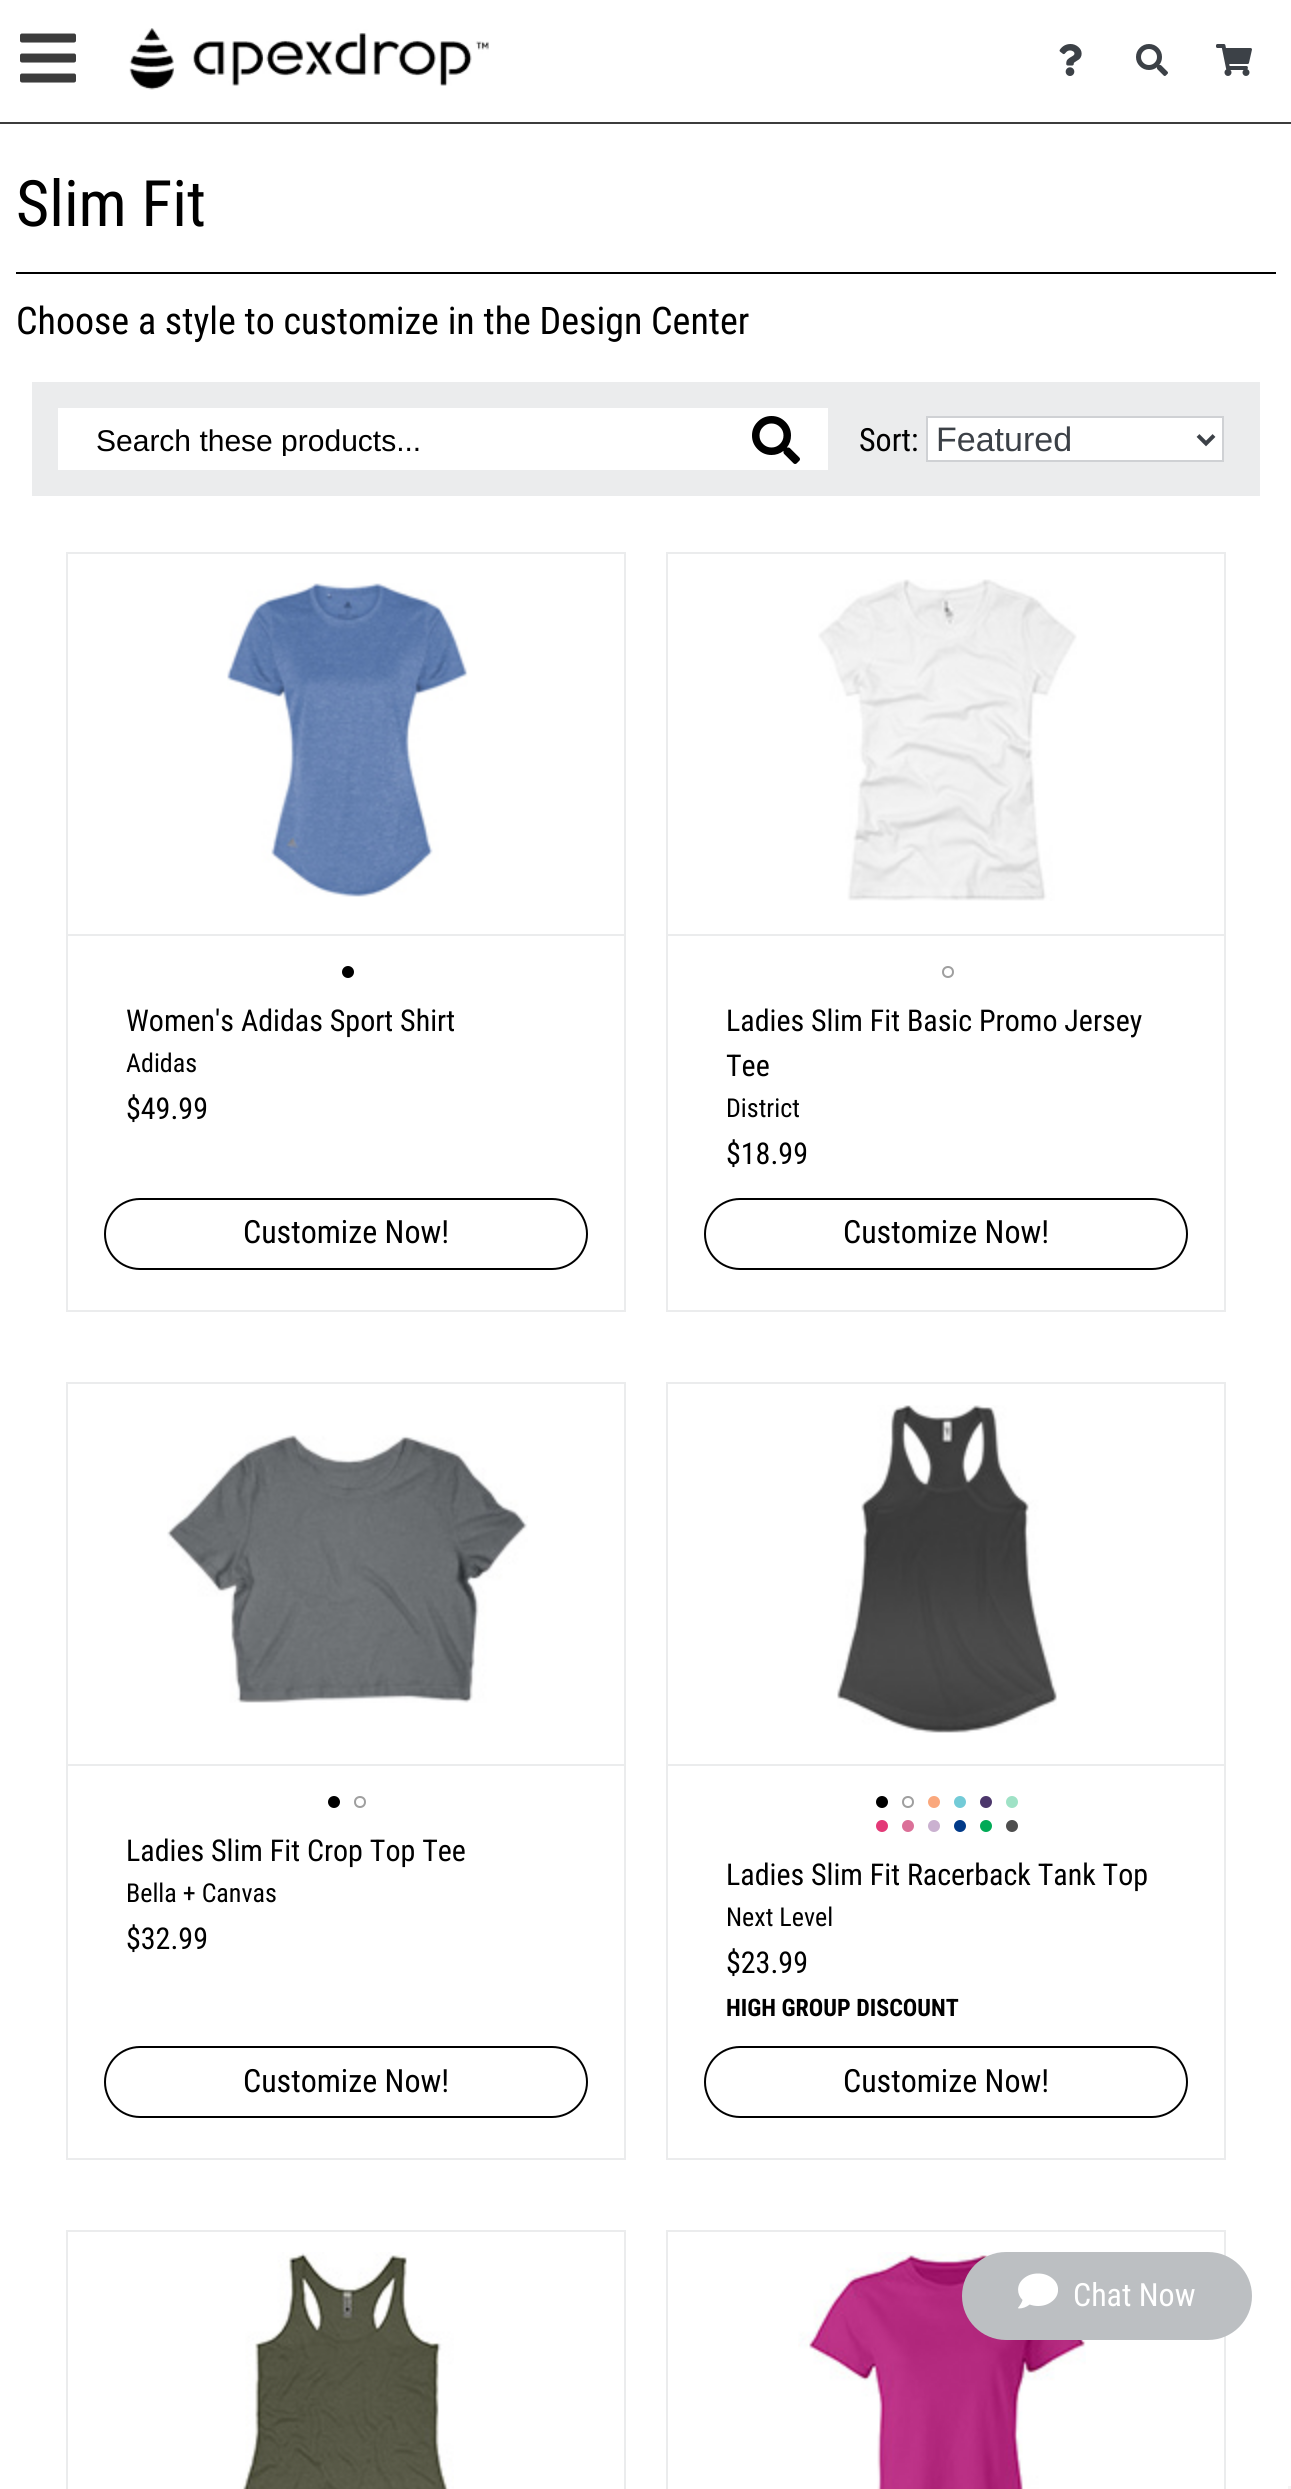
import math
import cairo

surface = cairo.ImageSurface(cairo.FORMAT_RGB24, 1291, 2489)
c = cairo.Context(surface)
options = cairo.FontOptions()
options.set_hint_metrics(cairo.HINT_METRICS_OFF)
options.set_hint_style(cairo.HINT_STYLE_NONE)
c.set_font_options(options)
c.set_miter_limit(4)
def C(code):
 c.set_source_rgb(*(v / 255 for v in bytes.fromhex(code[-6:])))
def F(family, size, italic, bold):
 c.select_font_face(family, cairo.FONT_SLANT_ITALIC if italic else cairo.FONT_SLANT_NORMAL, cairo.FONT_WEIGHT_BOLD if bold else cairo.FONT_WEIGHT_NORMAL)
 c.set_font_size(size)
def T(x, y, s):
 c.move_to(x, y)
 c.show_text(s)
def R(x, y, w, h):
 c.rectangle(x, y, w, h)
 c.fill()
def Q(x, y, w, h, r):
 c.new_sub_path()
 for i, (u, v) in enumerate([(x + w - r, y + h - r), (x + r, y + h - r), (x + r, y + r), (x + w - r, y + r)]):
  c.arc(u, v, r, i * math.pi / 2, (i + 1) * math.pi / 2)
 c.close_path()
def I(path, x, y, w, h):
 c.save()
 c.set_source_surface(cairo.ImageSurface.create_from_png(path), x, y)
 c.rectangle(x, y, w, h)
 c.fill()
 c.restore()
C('ffffff')
c.paint()
C('3c3c3c')
R(0,122,1291,2)
I('1.png',20,33,56,50)
I('2.png',129,28,360,62)
I('3.png',1059,44,23,32)
I('4.png',1136,44,32,32)
I('5.png',1216,44,36,32)
F('Roboto Condensed',64,0,0)
C('000000')
T(16,226,'Slim Fit')
R(16,272,1260,2)
F('Roboto Condensed',38,0,0)
T(16,334,'Choose a style to customize in the Design Center')
C('ebeced')
R(32,382,1228,114)
C('ffffff')
R(58,408,770,62)
c.save()
c.rectangle(96,422,610,34)
c.clip()
F('Liberation Sans',30,0,0)
C('000000')
T(96,451,'Search these products...')
c.restore()
I('6.png',752,416,48,48)
F('Roboto Condensed',32,0,0)
C('000000')
T(859,451,'Sort:')
C('ffffff')
c.rectangle(927,417,296,44)
c.fill_preserve()
C('cfd1d4')
c.stroke()
c.new_path()
c.move_to(1198,435.5)
c.line_to(1206,443.5)
c.line_to(1214,435.5)
C('3c4147')
c.set_line_width(4)
c.stroke()
F('Liberation Sans',34,0,0)
T(936,451,'Featured')
c.rectangle(67,553,558,758)
C('ebeced')
c.set_line_width(2)
c.stroke()
I('7.png',227,583,241,314)
R(68,934,556,2)
C('000000')
c.arc(348,972,6,0,2 * math.pi)
c.fill()
F('Roboto Condensed',30,0,0)
T(126,1031,'Women\'s Adidas Sport Shirt')
F('Roboto Condensed',26,0,0)
T(126,1072,'Adidas')
F('Roboto Condensed',30,0,0)
T(126,1119,'$49.99')
Q(105,1199,482,70,35)
c.stroke()
F('Roboto Condensed',32,0,0)
T(243,1243,'Customize Now!')
c.rectangle(667,553,558,758)
C('ebeced')
c.stroke()
I('8.png',818,579,259,322)
R(668,934,556,2)
c.arc(948,972,5,0,2 * math.pi)
C('9f9f9f')
c.stroke()
F('Roboto Condensed',30,0,0)
C('000000')
T(726,1031,'Ladies Slim Fit Basic Promo Jersey')
T(726,1076,'Tee')
F('Roboto Condensed',26,0,0)
T(726,1117,'District')
F('Roboto Condensed',30,0,0)
T(726,1164,'$18.99')
Q(705,1199,482,70,35)
c.stroke()
F('Roboto Condensed',32,0,0)
T(843,1243,'Customize Now!')
c.rectangle(67,1383,558,776)
C('ebeced')
c.stroke()
I('9.png',167,1435,361,268)
R(68,1764,556,2)
C('000000')
c.arc(334,1802,6,0,2 * math.pi)
c.fill()
c.arc(360,1802,5,0,2 * math.pi)
C('9f9f9f')
c.stroke()
F('Roboto Condensed',30,0,0)
C('000000')
T(126,1861,'Ladies Slim Fit Crop Top Tee')
F('Roboto Condensed',26,0,0)
T(126,1902,'Bella + Canvas')
F('Roboto Condensed',30,0,0)
T(126,1949,'$32.99')
Q(105,2047,482,70,35)
c.stroke()
F('Roboto Condensed',32,0,0)
T(243,2092,'Customize Now!')
c.rectangle(667,1383,558,776)
C('ebeced')
c.stroke()
I('10.png',837,1405,220,328)
R(668,1764,556,2)
C('000000')
c.arc(882,1802,6,0,2 * math.pi)
c.fill()
c.arc(908,1802,5,0,2 * math.pi)
C('9f9f9f')
c.stroke()
C('faa87d')
c.arc(934,1802,6,0,2 * math.pi)
c.fill()
C('73cbd7')
c.arc(960,1802,6,0,2 * math.pi)
c.fill()
C('4c376c')
c.arc(986,1802,6,0,2 * math.pi)
c.fill()
C('9fe2c6')
c.arc(1012,1802,6,0,2 * math.pi)
c.fill()
C('e33977')
c.arc(882,1826,6,0,2 * math.pi)
c.fill()
C('db7098')
c.arc(908,1826,6,0,2 * math.pi)
c.fill()
C('cab1d0')
c.arc(934,1826,6,0,2 * math.pi)
c.fill()
C('013a89')
c.arc(960,1826,6,0,2 * math.pi)
c.fill()
C('00aa56')
c.arc(986,1826,6,0,2 * math.pi)
c.fill()
C('4e4e4e')
c.arc(1012,1826,6,0,2 * math.pi)
c.fill()
F('Roboto Condensed',30,0,0)
C('000000')
T(726,1885,'Ladies Slim Fit Racerback Tank Top')
F('Roboto Condensed',26,0,0)
T(726,1926,'Next Level')
F('Roboto Condensed',30,0,0)
T(726,1973,'$23.99')
F('Roboto Condensed',24,0,1)
T(726,2016,'HIGH GROUP DISCOUNT')
Q(705,2047,482,70,35)
c.stroke()
F('Roboto Condensed',32,0,0)
T(843,2092,'Customize Now!')
c.rectangle(67,2231,558,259)
C('ebeced')
c.stroke()
I('11.png',240,2252,214,237)
c.rectangle(667,2231,558,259)
c.stroke()
I('12.png',798,2252,288,237)
C('bcbfc2')
Q(962,2252,290,88,44)
c.fill()
I('13.png',1018,2273,40,36)
C('ffffff')
T(1073,2306,'Chat Now')
C('f5f5f5')
R(1288,2486,3,3)
surface.write_to_png('o.png')
